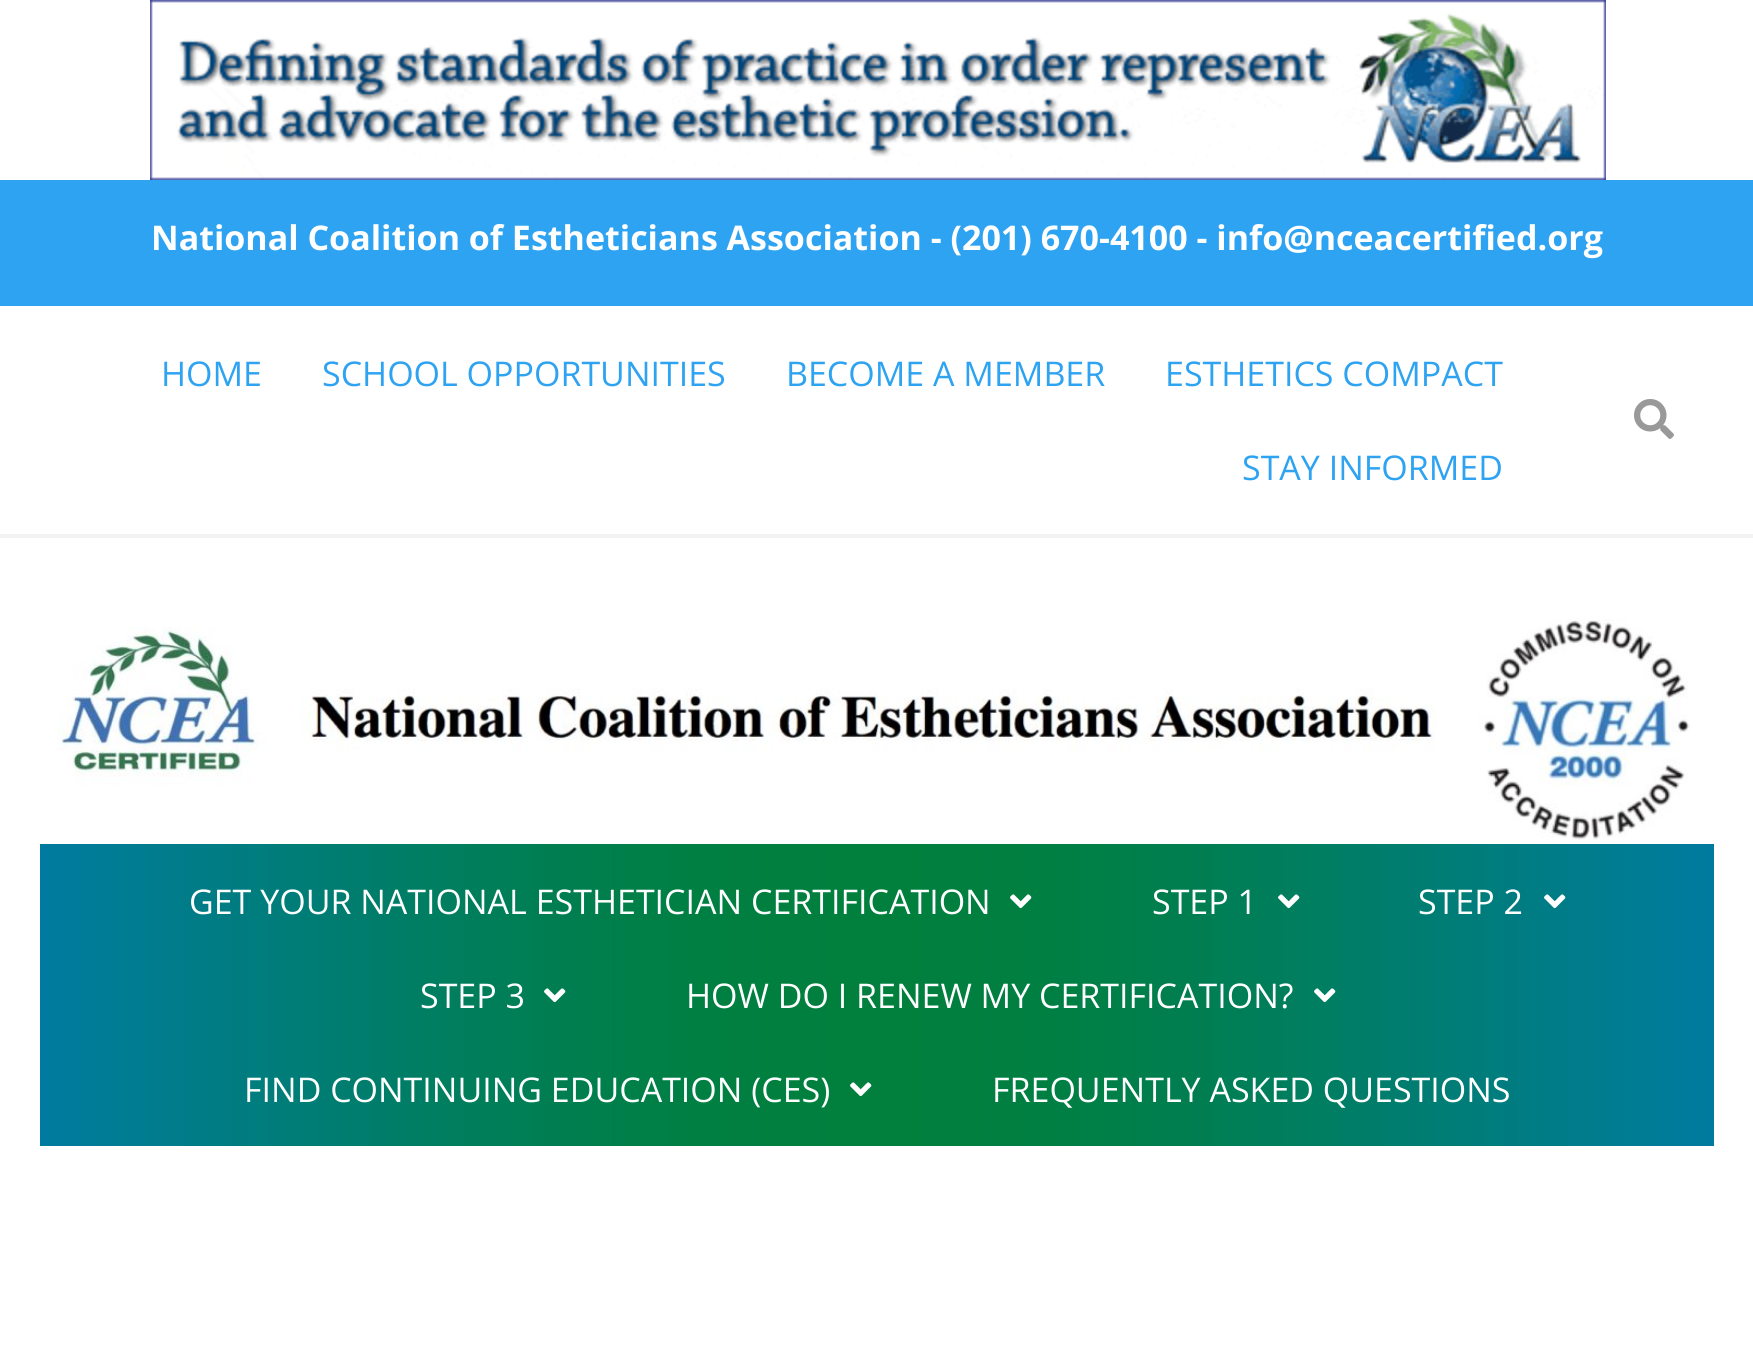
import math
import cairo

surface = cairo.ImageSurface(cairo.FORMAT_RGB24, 1753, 1356)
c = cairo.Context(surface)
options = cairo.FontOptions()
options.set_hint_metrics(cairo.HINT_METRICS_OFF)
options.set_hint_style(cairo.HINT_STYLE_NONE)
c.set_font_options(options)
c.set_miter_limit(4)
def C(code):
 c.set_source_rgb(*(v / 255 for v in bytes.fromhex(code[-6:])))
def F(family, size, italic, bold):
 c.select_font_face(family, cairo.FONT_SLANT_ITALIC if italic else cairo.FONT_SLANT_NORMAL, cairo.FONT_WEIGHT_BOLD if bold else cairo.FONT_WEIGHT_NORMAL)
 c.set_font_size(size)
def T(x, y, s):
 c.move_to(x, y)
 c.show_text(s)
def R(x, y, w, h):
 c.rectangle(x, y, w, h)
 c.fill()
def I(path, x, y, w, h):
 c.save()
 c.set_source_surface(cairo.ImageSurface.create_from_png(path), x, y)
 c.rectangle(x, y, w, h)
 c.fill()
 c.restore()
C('ffffff')
c.paint()
I('1.png',150,0,1456,180)
C('2ea3f2')
R(0,180,1753,126)
F('Open Sans',34,0,1)
C('ffffff')
T(151,250,'National Coalition of Estheticians Association - (201) 670-4100 - info@nceacertified.org')
C('f2f2f2')
R(0,534,1753,4)
F('Open Sans',34,0,0)
C('2ea3f2')
T(161,386,'HOME')
T(322,386,'SCHOOL OPPORTUNITIES')
T(786,386,'BECOME A MEMBER')
T(1165,386,'ESTHETICS COMPACT')
T(1242,480,'STAY INFORMED')
I('2.png',1634,399,40,40)
I('3.png',57,619,1633,221)
I('4.png',40,844,1674,302)
C('ffffff')
T(189,914,'GET YOUR NATIONAL ESTHETICIAN CERTIFICATION')
I('5.png',1010,894,22,15)
T(1152,914,'STEP 1')
I('6.png',1278,894,22,15)
T(1418,914,'STEP 2')
I('7.png',1544,894,22,15)
T(420,1008,'STEP 3')
I('8.png',544,988,22,15)
T(686,1008,'HOW DO I RENEW MY CERTIFICATION?')
I('9.png',1314,988,22,15)
T(244,1102,'FIND CONTINUING EDUCATION (CES)')
I('10.png',850,1082,22,15)
T(992,1102,'FREQUENTLY ASKED QUESTIONS')
surface.write_to_png('o.png')
